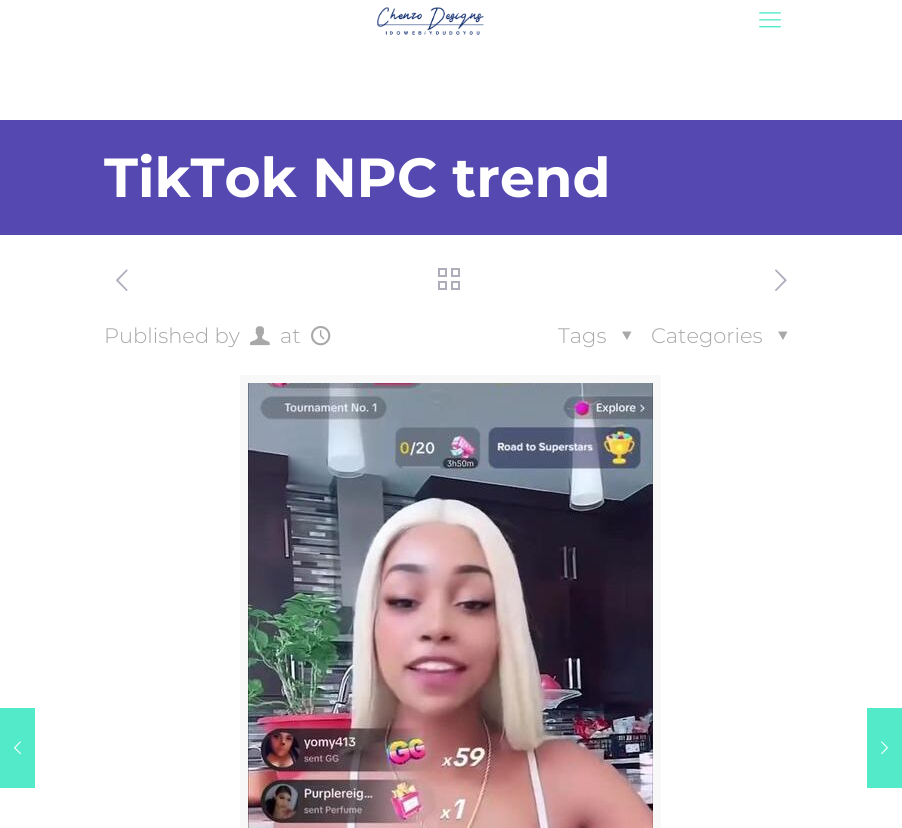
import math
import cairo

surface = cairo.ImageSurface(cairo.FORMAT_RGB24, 902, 828)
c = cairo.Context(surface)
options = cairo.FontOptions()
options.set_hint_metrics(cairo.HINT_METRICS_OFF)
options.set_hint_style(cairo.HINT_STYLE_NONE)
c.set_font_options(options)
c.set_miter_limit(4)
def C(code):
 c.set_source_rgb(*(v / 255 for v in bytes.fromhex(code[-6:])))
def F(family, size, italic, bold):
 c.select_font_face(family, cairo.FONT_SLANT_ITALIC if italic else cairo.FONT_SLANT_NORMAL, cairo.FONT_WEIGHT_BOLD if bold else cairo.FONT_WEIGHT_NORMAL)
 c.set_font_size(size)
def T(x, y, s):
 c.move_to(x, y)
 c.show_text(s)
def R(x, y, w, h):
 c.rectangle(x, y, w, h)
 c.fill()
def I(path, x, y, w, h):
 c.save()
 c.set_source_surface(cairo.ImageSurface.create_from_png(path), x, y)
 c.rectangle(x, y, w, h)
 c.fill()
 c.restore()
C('ffffff')
c.paint()
C('5548b0')
R(0,120,902,115)
I('1.png',377,7,107,28)
I('2.png',759,12,22,16)
F('Montserrat',55,0,1)
C('ffffff')
T(104,197,'TikTok NPC trend')
I('3.png',116,269,12,22)
I('4.png',438,268,22,22)
I('5.png',775,269,12,22)
F('Montserrat Light',21,0,0)
C('a8a8a8')
T(104,343,'Published by')
I('6.png',250,326,20,20)
T(280,343,'at')
I('7.png',311,326,20,20)
T(558,343,'Tags')
c.new_path()
c.move_to(631.5,331.5)
c.line_to(627,340)
c.line_to(622,331.5)
c.close_path()
c.fill()
T(651,343,'Categories')
c.new_path()
c.move_to(787.5,331.5)
c.line_to(783,340)
c.line_to(778,331.5)
c.close_path()
c.fill()
c.rectangle(244,379,413,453)
C('f8f8f8')
c.set_line_width(8)
c.stroke()
I('8.png',248,383,405,445)
C('52eac8')
R(0,708,35,80)
I('9.png',14,741,7,14)
R(867,708,35,80)
I('10.png',881,741,7,14)
surface.write_to_png('o.png')
